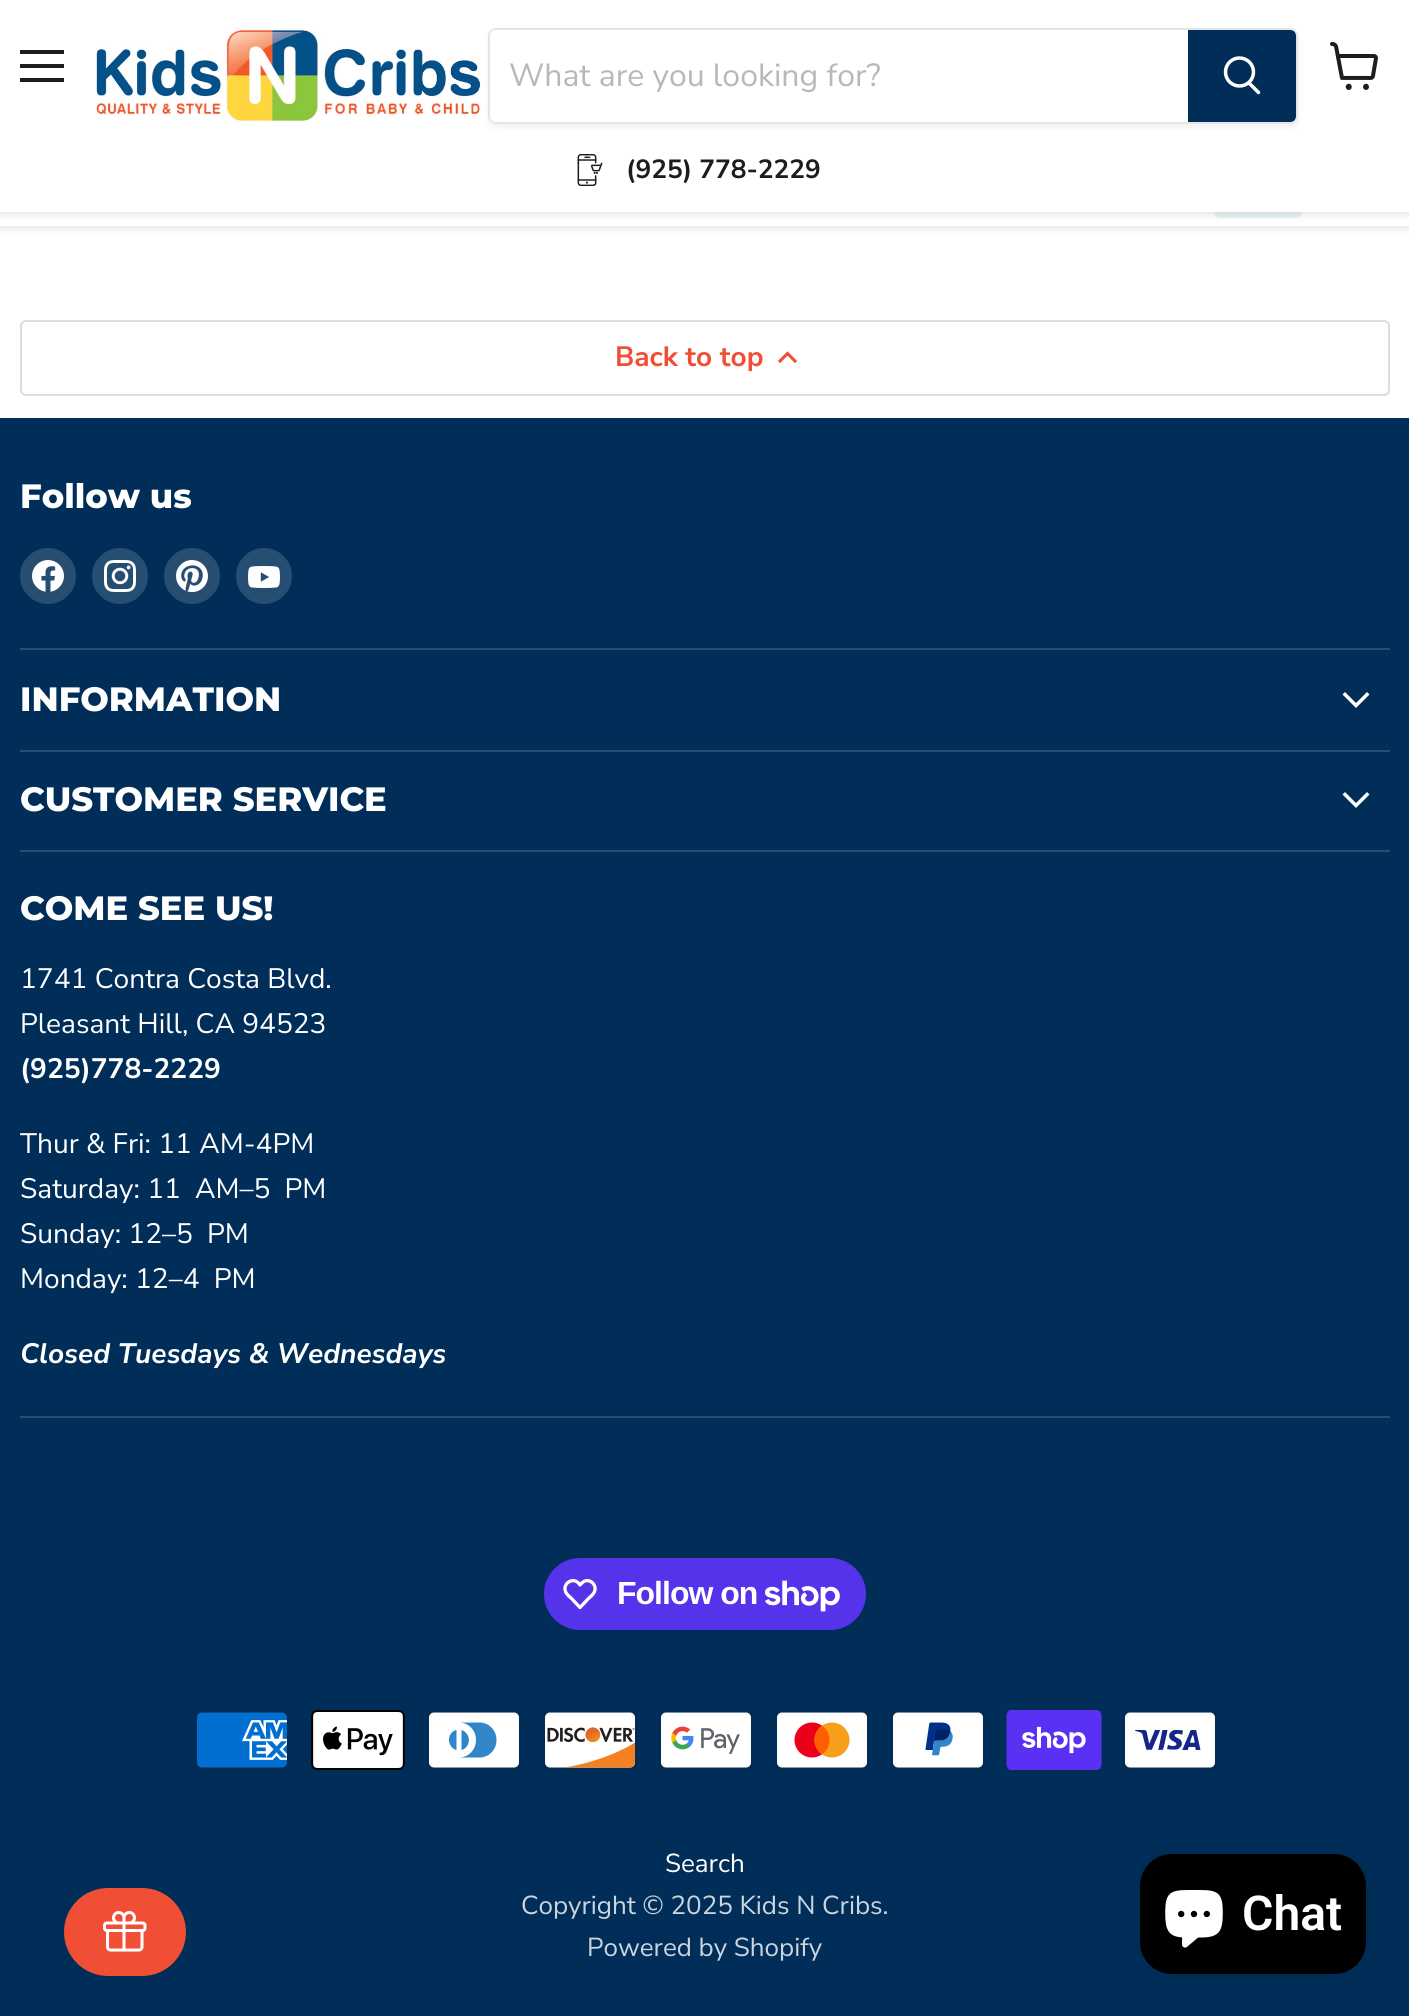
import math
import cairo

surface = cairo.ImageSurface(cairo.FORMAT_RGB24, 1409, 2016)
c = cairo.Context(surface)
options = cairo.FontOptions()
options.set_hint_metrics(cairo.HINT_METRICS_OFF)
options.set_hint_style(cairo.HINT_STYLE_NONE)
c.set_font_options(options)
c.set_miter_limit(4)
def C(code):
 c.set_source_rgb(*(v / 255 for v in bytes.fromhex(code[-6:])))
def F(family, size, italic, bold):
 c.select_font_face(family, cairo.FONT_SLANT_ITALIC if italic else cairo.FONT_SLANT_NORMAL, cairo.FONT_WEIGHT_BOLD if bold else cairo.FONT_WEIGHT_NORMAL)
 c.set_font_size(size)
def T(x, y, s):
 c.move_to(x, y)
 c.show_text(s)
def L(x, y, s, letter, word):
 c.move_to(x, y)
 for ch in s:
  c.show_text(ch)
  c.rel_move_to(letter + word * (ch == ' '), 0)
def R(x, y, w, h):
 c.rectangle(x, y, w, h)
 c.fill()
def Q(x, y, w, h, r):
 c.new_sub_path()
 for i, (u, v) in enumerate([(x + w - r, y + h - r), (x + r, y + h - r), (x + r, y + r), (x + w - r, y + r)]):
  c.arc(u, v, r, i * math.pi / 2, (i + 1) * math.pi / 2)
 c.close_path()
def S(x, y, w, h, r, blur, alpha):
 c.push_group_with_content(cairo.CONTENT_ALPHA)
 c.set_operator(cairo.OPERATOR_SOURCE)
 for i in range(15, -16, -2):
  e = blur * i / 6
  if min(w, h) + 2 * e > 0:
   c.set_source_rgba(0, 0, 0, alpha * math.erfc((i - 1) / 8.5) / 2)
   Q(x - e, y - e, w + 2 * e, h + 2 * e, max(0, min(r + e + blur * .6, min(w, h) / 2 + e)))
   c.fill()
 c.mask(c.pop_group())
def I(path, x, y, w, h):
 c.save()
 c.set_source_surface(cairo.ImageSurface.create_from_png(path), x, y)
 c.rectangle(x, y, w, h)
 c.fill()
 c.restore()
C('ffffff')
c.paint()
C('808080')
S(0,124,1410,104,0,4,.25)
C('ffffff')
R(0,212,1409,14)
C('e6f1f3')
Q(1214,130,88,88,6)
c.fill()
C('808080')
S(0,2,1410,212,0,4,.25)
C('ffffff')
R(0,0,1409,212)
C('1d1d1d')
R(20,50,44,4)
R(20,64,44,4)
R(20,78,44,4)
I('1.png',96,29,385,94)
c.save()
c.set_fill_rule(cairo.FILL_RULE_EVEN_ODD)
c.new_path()
c.move_to(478,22)
c.line_to(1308,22)
c.line_to(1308,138)
c.line_to(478,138)
c.close_path()
c.move_to(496,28)
c.line_to(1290,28)
c.curve_to(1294.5,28,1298,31.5,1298,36)
c.line_to(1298,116)
c.curve_to(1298,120.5,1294.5,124,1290,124)
c.line_to(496,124)
c.curve_to(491.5,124,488,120.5,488,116)
c.line_to(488,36)
c.curve_to(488,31.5,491.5,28,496,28)
c.close_path()
c.clip()
C('808080')
S(488,32,810,96,8,3,.11)
c.restore()
Q(489,29,808,94,7)
c.set_source_rgba(0.502,0.502,0.502,0.2)
c.stroke()
C('ffffff')
c.new_path()
c.move_to(496,30)
c.line_to(1188,30)
c.line_to(1188,122)
c.line_to(496,122)
c.curve_to(492.5,122,490,119.5,490,116)
c.line_to(490,36)
c.curve_to(490,32.5,492.5,30,496,30)
c.close_path()
c.fill()
F('Nunito Sans',32,0,0)
C('b8b8b8')
T(509,86,'What are you looking for?')
C('002e59')
c.new_path()
c.move_to(1189,31)
c.line_to(1290,31)
c.curve_to(1293,31,1295,33,1295,36)
c.line_to(1295,116)
c.curve_to(1295,119,1293,121,1290,121)
c.line_to(1189,121)
c.close_path()
c.fill_preserve()
c.stroke()
c.new_path()
c.move_to(1258.5,92.5)
c.line_to(1249,83)
C('ffffff')
c.set_line_width(3.5)
c.set_line_cap(cairo.LINE_CAP_ROUND)
c.stroke()
c.arc(1239.5,72,14,0,2 * math.pi)
c.set_line_cap(cairo.LINE_CAP_BUTT)
c.stroke()
I('2.png',577,154,26,32)
F('Nunito Sans',26.25,0,1)
C('1d1d1d')
T(626,178,'(925) 778-2229')
I('3.png',1330,42,48,48)
Q(21,321,1368,74,5)
C('dddddd')
c.set_line_width(2)
c.stroke()
F('Nunito Sans',28,0,1)
C('f04f36')
T(615,366,'Back to top')
c.new_path()
c.move_to(787.5,353.5)
c.line_to(780,361)
c.move_to(787.5,353.5)
c.line_to(795,361)
c.set_line_width(3.1)
c.set_line_cap(cairo.LINE_CAP_SQUARE)
c.stroke()
C('002e59')
R(0,418,1409,1598)
C('264d72')
R(20,648,1370,2)
F('Montserrat ExtraBold',33.75,0,0)
C('ffffff')
T(20,508,'Follow us')
C('264d72')
c.new_path()
c.arc(48,576,28,0,2 * math.pi)
c.fill()
I('4.png',32,560,32,32)
c.arc(120,576,28,0,2 * math.pi)
c.fill()
I('5.png',104,560,32,32)
c.arc(192,576,28,0,2 * math.pi)
c.fill()
I('6.png',176,560,32,33)
c.arc(264,576,28,0,2 * math.pi)
c.fill()
I('7.png',248,566,32,22)
R(20,750,1370,2)
C('ffffff')
T(20,711,'INFORMATION')
c.new_path()
c.move_to(1356,705.5)
c.line_to(1367,694.5)
c.move_to(1356,705.5)
c.line_to(1345,694.5)
c.set_line_width(3.5)
c.stroke()
C('264d72')
R(20,850,1370,2)
C('ffffff')
T(20,811,'CUSTOMER SERVICE')
c.new_path()
c.move_to(1356,805.5)
c.line_to(1367,794.5)
c.move_to(1356,805.5)
c.line_to(1345,794.5)
c.stroke()
C('264d72')
R(20,1416,1370,2)
C('ffffff')
T(20,920,'COME SEE US!')
F('Nunito Sans',28.1,0,0)
T(20,988,'1741 Contra Costa Blvd.')
T(20,1033,'Pleasant Hill, CA 94523')
F('Nunito Sans',28.1,0,1)
T(20,1078,'(925)778-2229')
F('Nunito Sans',28.1,0,0)
T(20,1153,'Thur & Fri: 11 AM-4PM')
T(20,1198,'Saturday: 11 AM–5 PM')
T(20,1243,'Sunday: 12–5 PM')
T(20,1288,'Monday: 12–4 PM')
F('Nunito Sans',28.1,1,1)
T(20,1363,'Closed Tuesdays & Wednesdays')
C('5433eb')
Q(544,1558,322,72,36)
c.fill()
c.new_path()
c.move_to(578.5,1583)
c.line_to(580,1585)
c.curve_to(581.5,1583.5,583,1581.5,585,1581)
c.curve_to(591,1579,597,1585.5,594.5,1591.5)
c.curve_to(593.5,1594.5,590.5,1596.5,588.5,1598.5)
c.line_to(580,1607.5)
c.line_to(571.5,1598.5)
c.curve_to(569.5,1596.5,566.5,1594.5,565.5,1591.5)
c.curve_to(562.5,1583.5,572.5,1577,578.5,1583)
c.close_path()
C('ffffff')
c.set_line_width(3.3)
c.set_line_cap(cairo.LINE_CAP_BUTT)
c.set_line_join(cairo.LINE_JOIN_ROUND)
c.stroke()
F('Liberation Sans',32,0,1)
L(617,1604,'Follow on',-1,0)
I('8.png',765,1580,75,32)
I('9.png',195,1710,94,60)
I('10.png',311,1710,94,60)
I('11.png',427,1710,94,60)
I('12.png',543,1710,94,60)
I('13.png',659,1710,94,60)
I('14.png',775,1710,94,60)
I('15.png',891,1710,94,60)
I('16.png',1006,1710,96,60)
I('17.png',1123,1710,94,60)
F('Nunito Sans',26,0,0)
T(665,1872,'Search')
C('ccd5de')
T(521,1914,'Copyright © 2025 Kids N Cribs.')
T(587,1956,'Powered by Shopify')
C('f04f36')
Q(64,1888,122,88,44)
c.fill()
I('18.png',103,1911,44,41)
C('000000')
S(1140,1854,226,120,32,5,.15)
C('000000')
Q(1140,1854,226,120,32)
c.fill()
I('19.png',1165,1890,58,58)
F('Roboto SemiBold',48,0,0)
C('ffffff')
T(1242,1930,'Chat')
surface.write_to_png('o.png')
